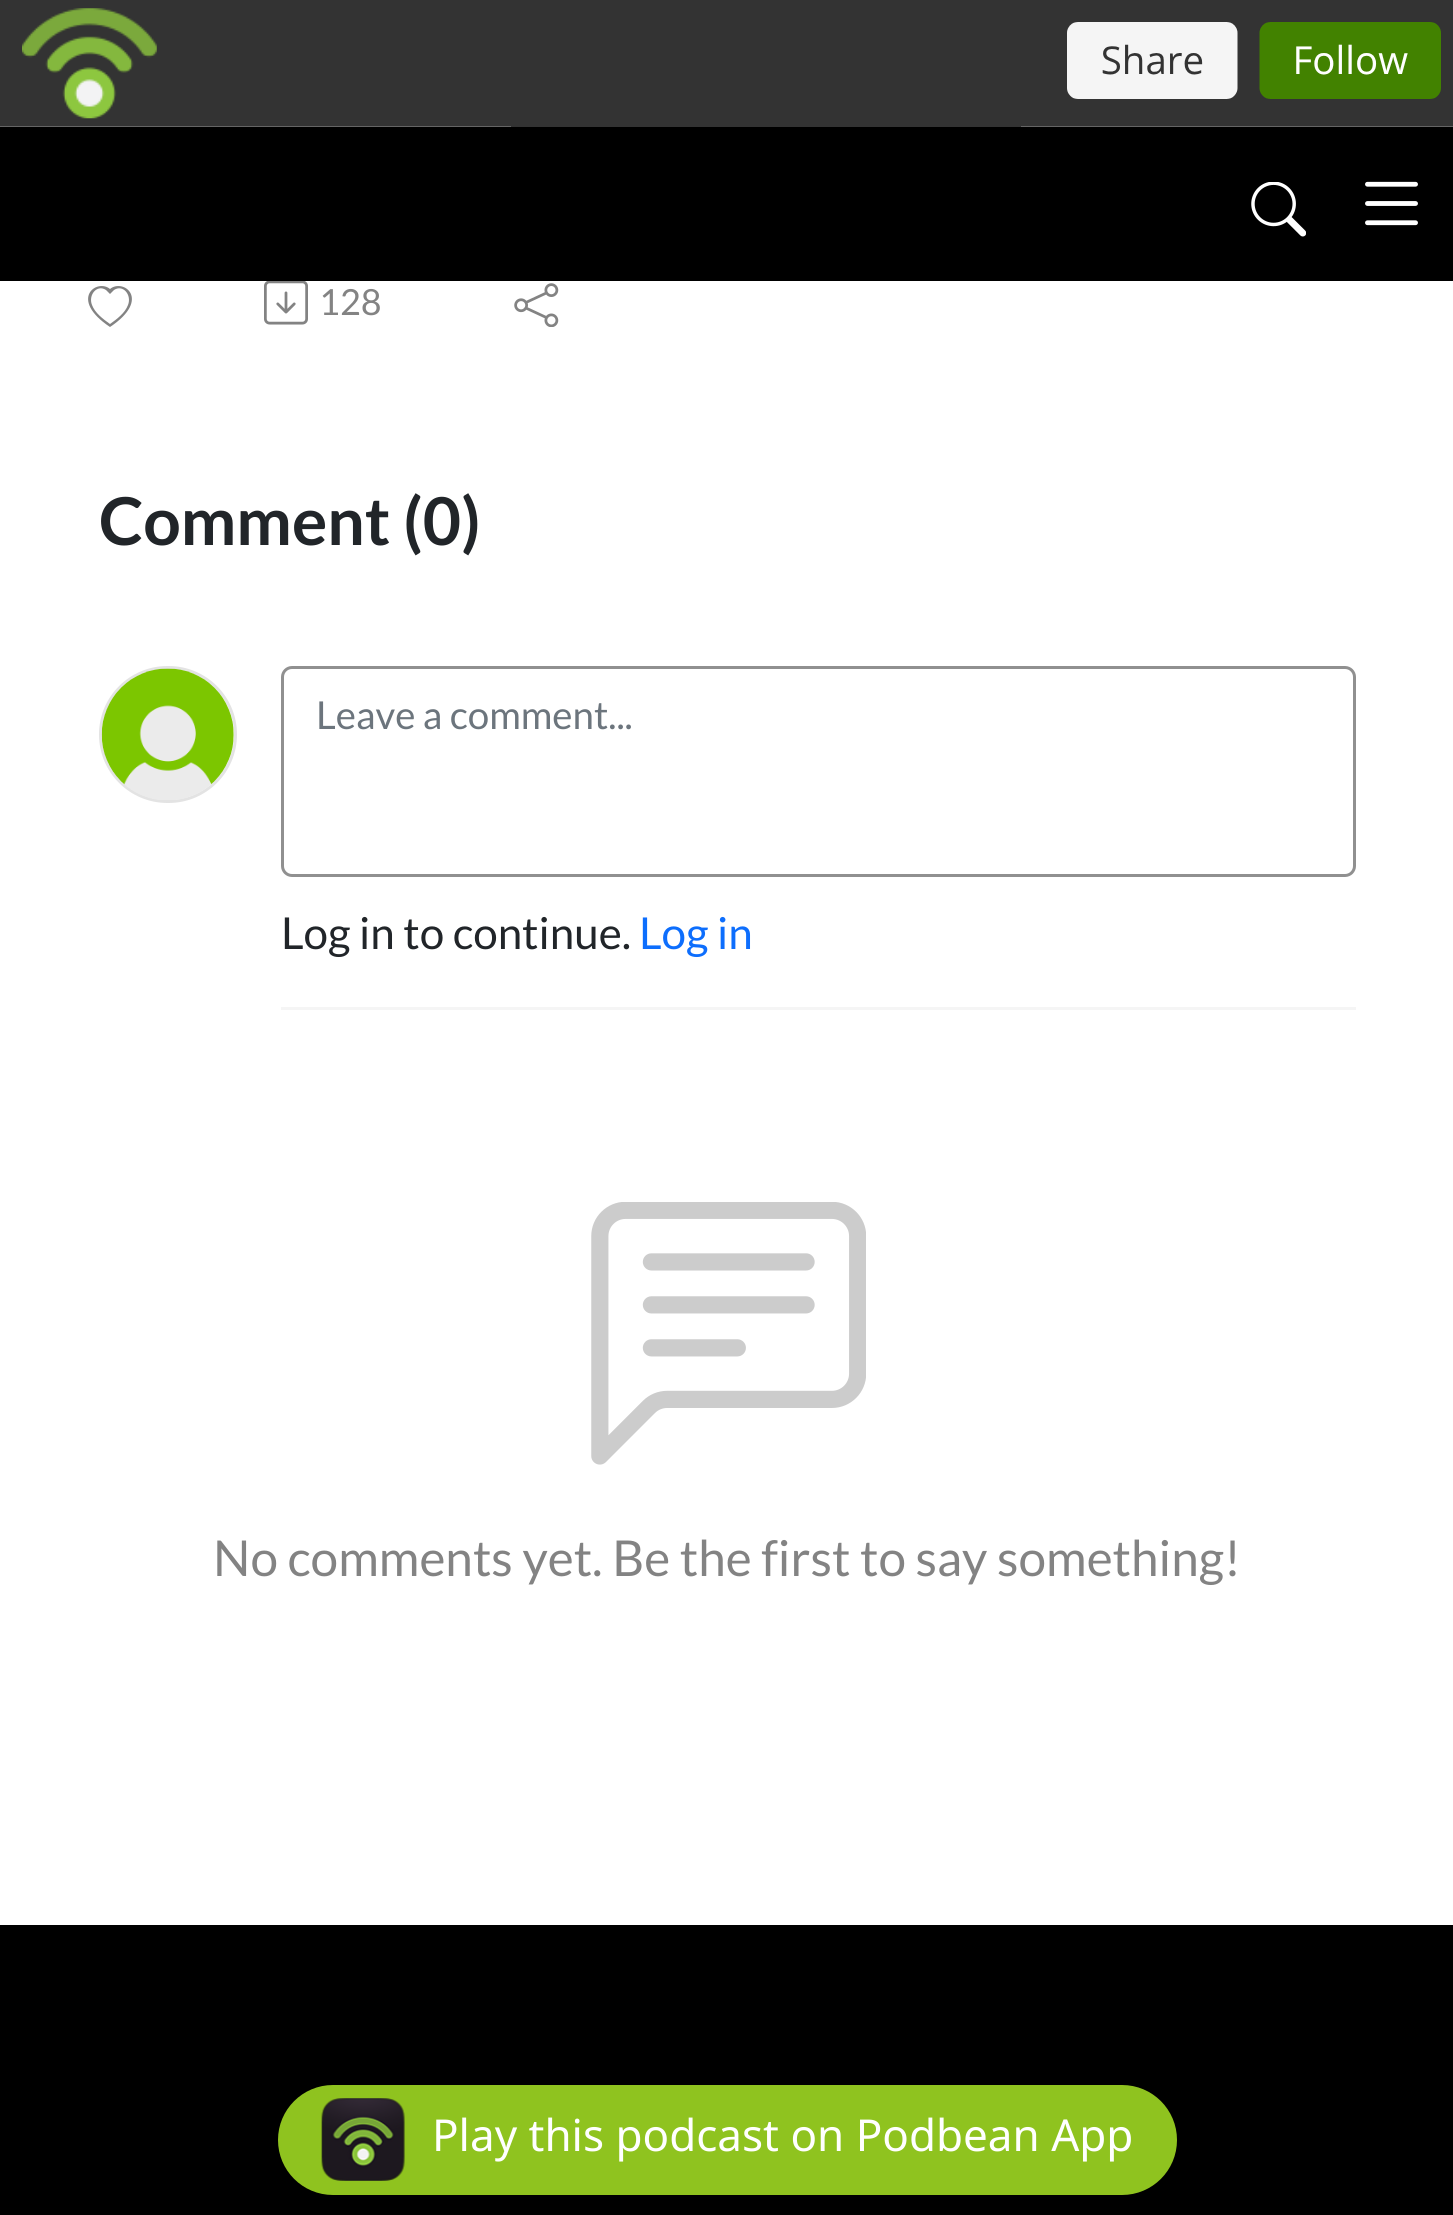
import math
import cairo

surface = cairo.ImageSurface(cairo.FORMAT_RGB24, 1453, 2215)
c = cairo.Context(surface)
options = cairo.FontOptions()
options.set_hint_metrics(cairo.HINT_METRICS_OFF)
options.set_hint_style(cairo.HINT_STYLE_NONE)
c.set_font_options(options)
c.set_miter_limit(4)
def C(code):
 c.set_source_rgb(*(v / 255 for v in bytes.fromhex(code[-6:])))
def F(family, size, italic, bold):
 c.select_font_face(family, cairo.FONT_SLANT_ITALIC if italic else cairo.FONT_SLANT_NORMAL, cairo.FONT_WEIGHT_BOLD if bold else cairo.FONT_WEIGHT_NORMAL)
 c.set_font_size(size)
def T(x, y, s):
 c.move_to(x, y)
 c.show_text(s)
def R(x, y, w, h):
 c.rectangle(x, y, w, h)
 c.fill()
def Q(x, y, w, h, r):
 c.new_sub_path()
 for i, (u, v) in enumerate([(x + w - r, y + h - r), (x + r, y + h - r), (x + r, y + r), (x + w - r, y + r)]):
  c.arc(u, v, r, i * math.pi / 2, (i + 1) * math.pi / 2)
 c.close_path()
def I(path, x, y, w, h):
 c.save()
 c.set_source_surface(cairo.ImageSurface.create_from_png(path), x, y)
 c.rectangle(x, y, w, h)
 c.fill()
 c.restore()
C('ffffff')
c.paint()
C('333333')
R(0,0,1453,8)
I('1.png',0,8,1453,119)
C('000000')
R(0,127,1453,154)
I('2.png',1251,182,55,55)
I('3.png',1365,181,53,45)
C('838383')
c.new_path()
c.move_to(110,294)
c.line_to(106,290)
c.curve_to(97,284,88,295,92,305)
c.curve_to(95,313,103,319,110,324)
c.curve_to(117,319,125,313,128,305)
c.curve_to(132,295,123,284,114,290)
c.close_path()
c.move_to(110,327)
c.curve_to(68,299,97,278,110,289)
c.line_to(110,290)
c.line_to(110,289)
c.curve_to(123,278,152,299,110,327)
c.close_path()
c.fill()
I('4.png',264,281,44,44)
F('Lato',36,0,0)
T(319,315,'128')
I('5.png',514,283,45,44)
F('Lato',66,0,1)
C('212529')
T(99,545,'Comment (0)')
Q(100.5,667.5,135,134,67)
C('e3e3e3')
c.set_line_width(3)
c.stroke()
I('6.png',101,668,133,132)
C('f5f5f5')
R(281,1007,1075,3)
Q(282.5,667.5,1072,208,9.5)
C('909090')
c.stroke()
F('Lato',38.5,0,0)
C('6c757d')
T(316,729,'Leave a comment...')
F('Lato',44,0,0)
C('212529')
T(281,949,'Log in to continue.')
C('0d6efd')
T(639,949,'Log in')
I('7.png',591,1202,275,263)
F('Lato',49.5,0,0)
C('838383')
T(213,1576,'No comments yet. Be the first to say something!')
C('000000')
R(0,1925,1453,290)
C('8fc31f')
Q(278,2085,899,110,55)
c.fill()
I('8.png',321,2098,84,83)
F('Noto Sans',44,0,0)
C('ffffff')
T(432,2151,'Play this podcast on Podbean App')
surface.write_to_png('o.png')
